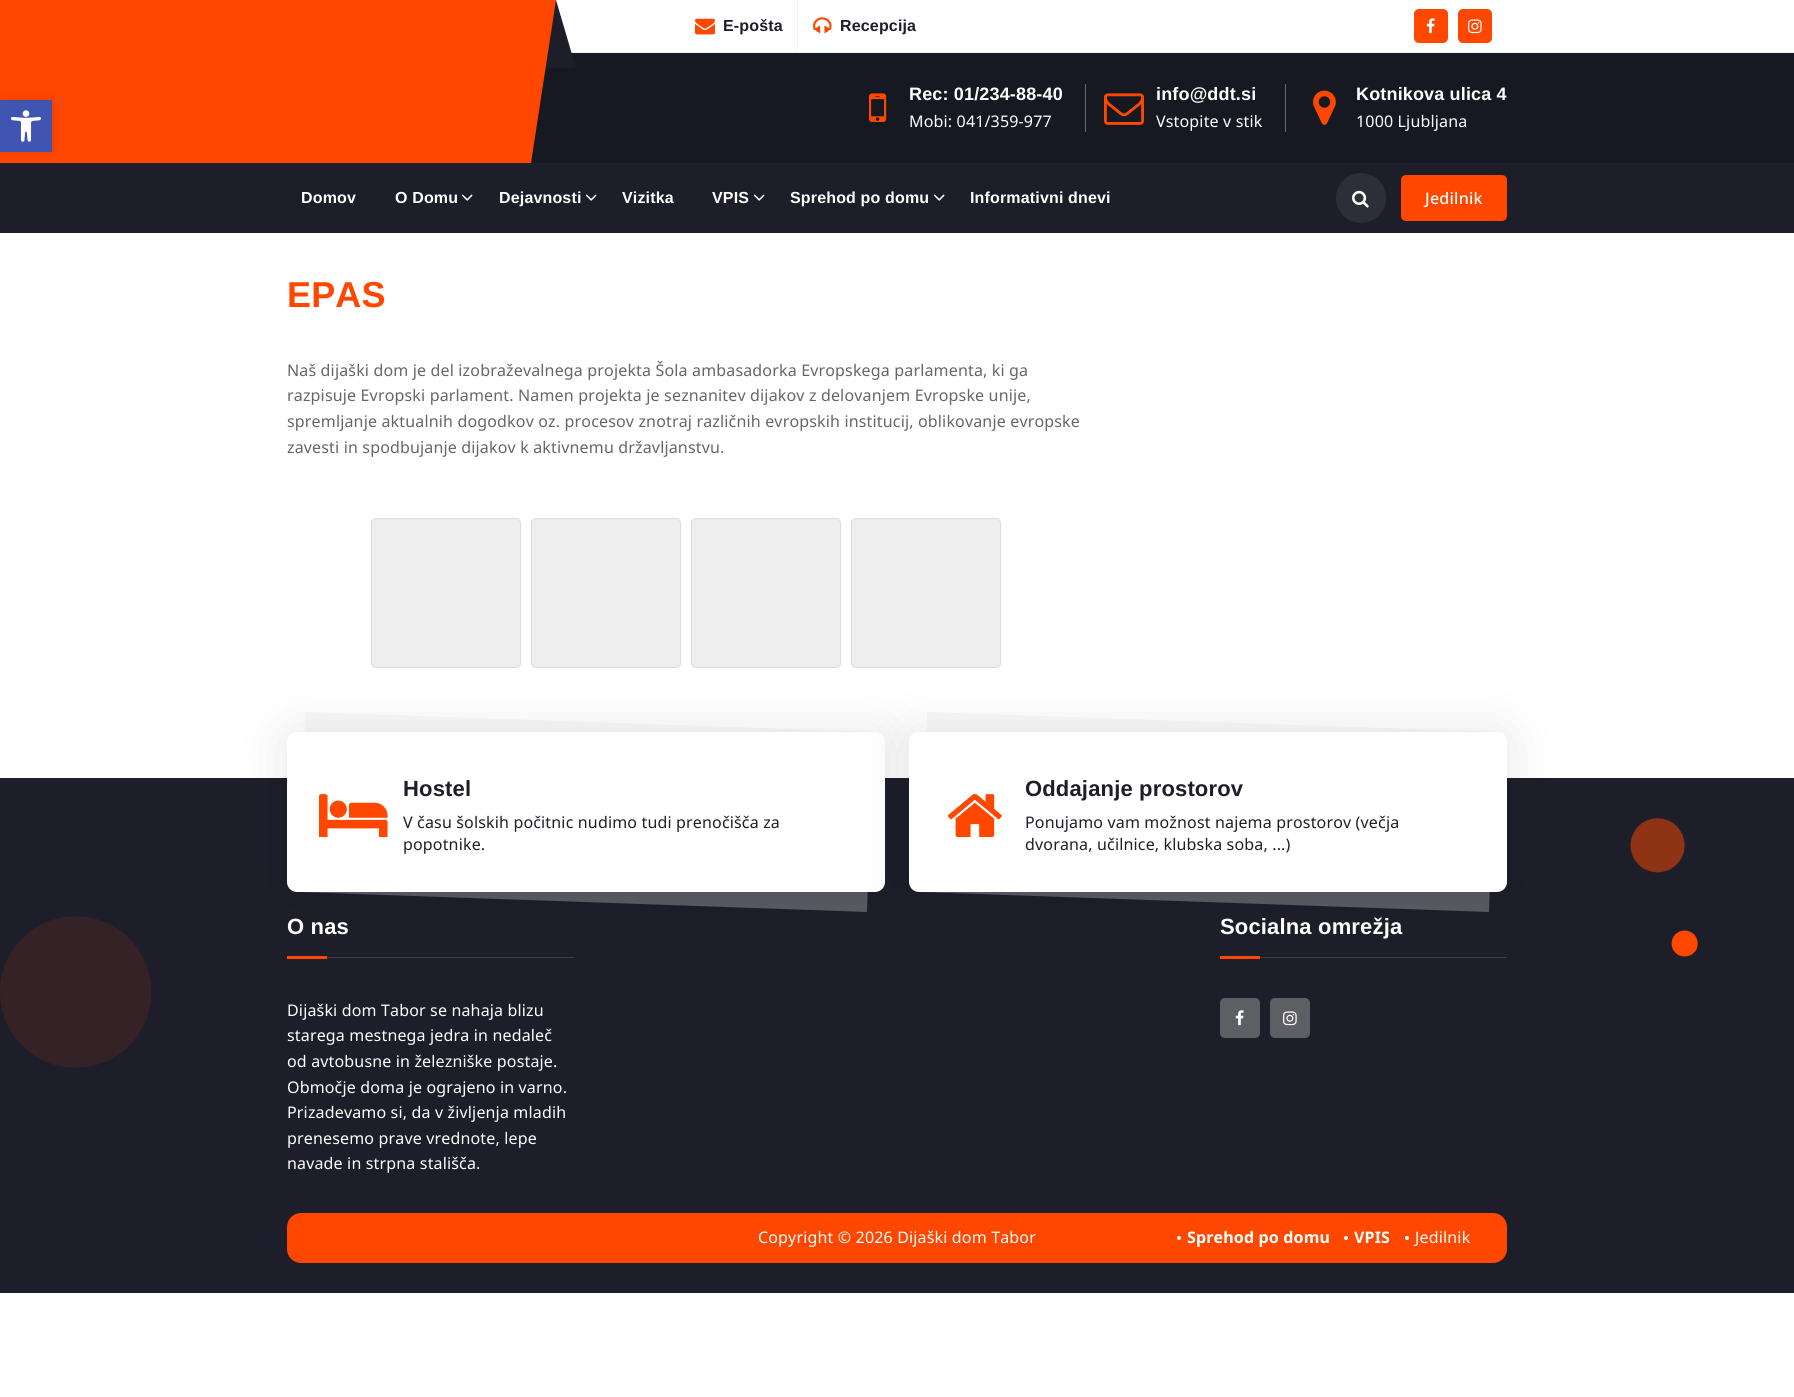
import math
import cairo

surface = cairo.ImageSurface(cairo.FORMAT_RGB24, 1794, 1397)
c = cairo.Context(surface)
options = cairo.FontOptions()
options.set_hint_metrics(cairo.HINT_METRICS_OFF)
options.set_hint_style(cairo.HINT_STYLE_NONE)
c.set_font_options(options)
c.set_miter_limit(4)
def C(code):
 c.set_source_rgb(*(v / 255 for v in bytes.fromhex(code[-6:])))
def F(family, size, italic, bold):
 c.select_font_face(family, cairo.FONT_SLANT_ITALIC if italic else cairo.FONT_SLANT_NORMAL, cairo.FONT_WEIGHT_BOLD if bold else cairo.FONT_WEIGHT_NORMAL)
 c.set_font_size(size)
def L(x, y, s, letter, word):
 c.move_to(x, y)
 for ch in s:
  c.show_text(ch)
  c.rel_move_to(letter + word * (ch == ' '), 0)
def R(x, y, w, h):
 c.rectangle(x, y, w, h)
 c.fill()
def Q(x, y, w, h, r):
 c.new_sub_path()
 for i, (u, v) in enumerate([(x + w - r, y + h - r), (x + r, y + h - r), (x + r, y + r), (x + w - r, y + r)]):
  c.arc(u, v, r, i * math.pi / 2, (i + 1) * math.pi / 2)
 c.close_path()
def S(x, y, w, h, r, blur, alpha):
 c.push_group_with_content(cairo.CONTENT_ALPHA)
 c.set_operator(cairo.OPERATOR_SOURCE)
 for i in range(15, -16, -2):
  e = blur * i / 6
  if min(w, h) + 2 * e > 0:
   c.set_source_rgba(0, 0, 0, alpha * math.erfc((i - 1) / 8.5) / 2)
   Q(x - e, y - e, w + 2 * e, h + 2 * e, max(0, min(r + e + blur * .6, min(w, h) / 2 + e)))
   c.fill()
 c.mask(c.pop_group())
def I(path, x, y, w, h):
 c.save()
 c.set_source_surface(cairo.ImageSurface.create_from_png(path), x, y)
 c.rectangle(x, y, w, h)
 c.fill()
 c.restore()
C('ffffff')
c.paint()
C('161921')
R(531,53,1263,110)
C('f2f2f2')
R(571,52,1223,1)
C('1e1e2a')
c.new_path()
c.move_to(0,0)
c.line_to(0,68)
c.line_to(576,68)
c.line_to(556,0)
c.close_path()
c.fill()
C('ff4700')
c.new_path()
c.move_to(0,0)
c.line_to(0,163)
c.line_to(531,163)
c.line_to(556,0)
c.close_path()
c.fill()
C('1e1e2a')
R(0,163,1794,70)
C('000000')
S(0,100,52,52,0,5,.1)
C('4054b2')
R(0,100,52,52)
I('1.png',11,110,30,32)
I('2.png',695,18,20,17)
F('Liberation Sans',16,0,1)
C('1e1e2a')
L(723,31,'E-pošta',.16,0)
C('f2f2f2')
R(797,0,1,51)
I('3.png',813,17,19,16)
C('1e1e2a')
L(840,31,'Recepcija',.16,0)
C('ff4700')
Q(1414,9,34,34,5)
c.fill()
I('4.png',1426,18,9,16)
Q(1458,9,34,34,5)
c.fill()
I('5.png',1468,19,14,15)
I('6.png',869,93,18,29)
F('Liberation Sans',18,0,1)
C('ffffff')
L(909,100,'Rec: 01/234-88-40',.16,0)
F('Noto Sans',16,0,0)
L(909,127,'Mobi: 041/359-977',.16,0)
C('6a6b6f')
R(1085,84,1,48)
I('7.png',1104,93,40,32)
F('Liberation Sans',18,0,1)
C('ffffff')
L(1156,100,'info@ddt.si',.16,0)
F('Noto Sans',16,0,0)
L(1156,127,'Vstopite v stik',.16,0)
C('6a6b6f')
R(1285,84,1,48)
I('8.png',1313,90,23,35)
F('Liberation Sans',18,0,1)
C('ffffff')
L(1356,100,'Kotnikova ulica 4',.16,0)
F('Noto Sans',16,0,0)
L(1356,127,'1000 Ljubljana',.16,0)
F('Liberation Sans',16,0,1)
L(301,203,'Domov',.16,0)
L(395,203,'O Domu',.16,0)
I('9.png',461,194,12,7)
L(499,203,'Dejavnosti',.16,0)
I('9.png',585,194,12,7)
L(622,203,'Vizitka',.16,0)
L(712,203,'VPIS',.16,0)
I('9.png',753,194,12,7)
L(790,203,'Sprehod po domu',.16,0)
I('9.png',933,194,12,7)
L(970,203,'Informativni dnevi',.16,0)
C('2e2e39')
c.new_path()
c.arc(1361,198,25,0,2 * math.pi)
c.fill()
I('10.png',1352,190,17,18)
C('ff4700')
Q(1401,175,106,46,5)
c.fill()
F('Noto Sans Medium',16,0,0)
C('ffffff')
L(1425,204,'Jedilnik',.25,0)
F('Liberation Sans',36,0,1)
C('ff4700')
L(287,307,'EPAS',.16,0)
F('Noto Sans',16,0,0)
C('666666')
L(287,376,'Naš dijaški dom je del izobraževalnega projekta Šola ambasadorka Evropskega parlamenta, ki ga',.16,0)
L(287,401,'razpisuje Evropski parlament. Namen projekta je seznanitev dijakov z delovanjem Evropske unije,',.16,0)
L(287,427,'spremljanje aktualnih dogodkov oz. procesov znotraj različnih evropskih institucij, oblikovanje evropske',.16,0)
L(287,453,'zavesti in spodbujanje dijakov k aktivnemu državljanstvu.',.16,0)
C('1e1e2a')
R(0,778,1794,515)
I('13.png',0,818,1698,250)
c.set_source_rgba(0.906,0.906,0.906,0.3)
c.new_path()
c.move_to(305,712)
c.line_to(873,732)
c.line_to(867,912)
c.line_to(299,892)
c.close_path()
c.fill()
C('000000')
S(287,732,598,160,10,25,.1)
C('eeeeee')
Q(371.5,518.5,149,149,4.5)
c.fill_preserve()
C('dddddd')
c.set_line_width(1)
c.stroke()
C('eeeeee')
Q(531.5,518.5,149,149,4.5)
c.fill_preserve()
C('dddddd')
c.stroke()
C('ffffff')
Q(287,732,598,160,10)
c.fill()
c.set_source_rgba(0.906,0.906,0.906,0.3)
c.new_path()
c.move_to(927,712)
c.line_to(1495,732)
c.line_to(1489,912)
c.line_to(921,892)
c.close_path()
c.fill()
C('000000')
S(909,732,598,160,10,25,.1)
C('eeeeee')
Q(691.5,518.5,149,149,4.5)
c.fill_preserve()
C('dddddd')
c.stroke()
C('eeeeee')
Q(851.5,518.5,149,149,4.5)
c.fill_preserve()
C('dddddd')
c.stroke()
I('11.png',319,794,69,43)
F('Liberation Sans',22,0,1)
C('1e1e2a')
L(403,796,'Hostel',.16,0)
F('Noto Sans',16,0,0)
L(403,828,'V času šolskih počitnic nudimo tudi prenočišča za',.16,0)
L(403,850,'popotnike.',.16,0)
C('ffffff')
Q(909,732,598,160,10)
c.fill()
I('12.png',947,794,55,43)
F('Liberation Sans',22,0,1)
C('1e1e2a')
L(1025,796,'Oddajanje prostorov',.16,0)
F('Noto Sans',16,0,0)
L(1025,828,'Ponujamo vam možnost najema prostorov (večja',.16,0)
L(1025,850,'dvorana, učilnice, klubska soba, ...)',.16,0)
C('3e3e47')
R(327,957,247,1)
F('Liberation Sans',22,0,1)
C('ffffff')
L(287,934,'O nas',.16,0)
C('ff4700')
R(287,956,40,3)
F('Noto Sans',16,0,0)
C('ffffff')
L(287,1016,'Dijaški dom Tabor se nahaja blizu',.16,0)
L(287,1041,'starega mestnega jedra in nedaleč',.16,0)
L(287,1067,'od avtobusne in železniške postaje.',.16,0)
L(287,1093,'Območje doma je ograjeno in varno.',.16,0)
L(287,1118,'Prizadevamo si, da v življenja mladih',.16,0)
L(287,1144,'prenesemo prave vrednote, lepe',.16,0)
L(287,1169,'navade in strpna stališča.',.16,0)
C('3e3e47')
R(1260,957,247,1)
F('Liberation Sans',22,0,1)
C('ffffff')
L(1220,934,'Socialna omrežja',.16,0)
C('ff4700')
R(1220,956,40,3)
C('5e5e65')
Q(1220,998,40,40,5)
c.fill()
I('14.png',1235,1010,9,16)
Q(1270,998,40,40,5)
c.fill()
I('15.png',1283,1011,14,15)
C('ff4700')
Q(287,1213,1220,50,14)
c.fill()
F('Noto Sans',16,0,0)
C('ffffff')
L(758,1243,'Copyright © 2026 Dijaški dom Tabor',.16,0)
c.new_path()
c.arc(1179,1238,2,0,2 * math.pi)
c.fill()
F('Noto Sans',16,0,1)
L(1187,1243,'Sprehod po domu',.16,0)
c.new_path()
c.arc(1346,1238,2,0,2 * math.pi)
c.fill()
L(1354,1243,'VPIS',.16,0)
c.new_path()
c.arc(1407,1238,2,0,2 * math.pi)
c.fill()
F('Noto Sans',16,0,0)
L(1415,1243,'Jedilnik',.16,0)
surface.write_to_png('o.png')
